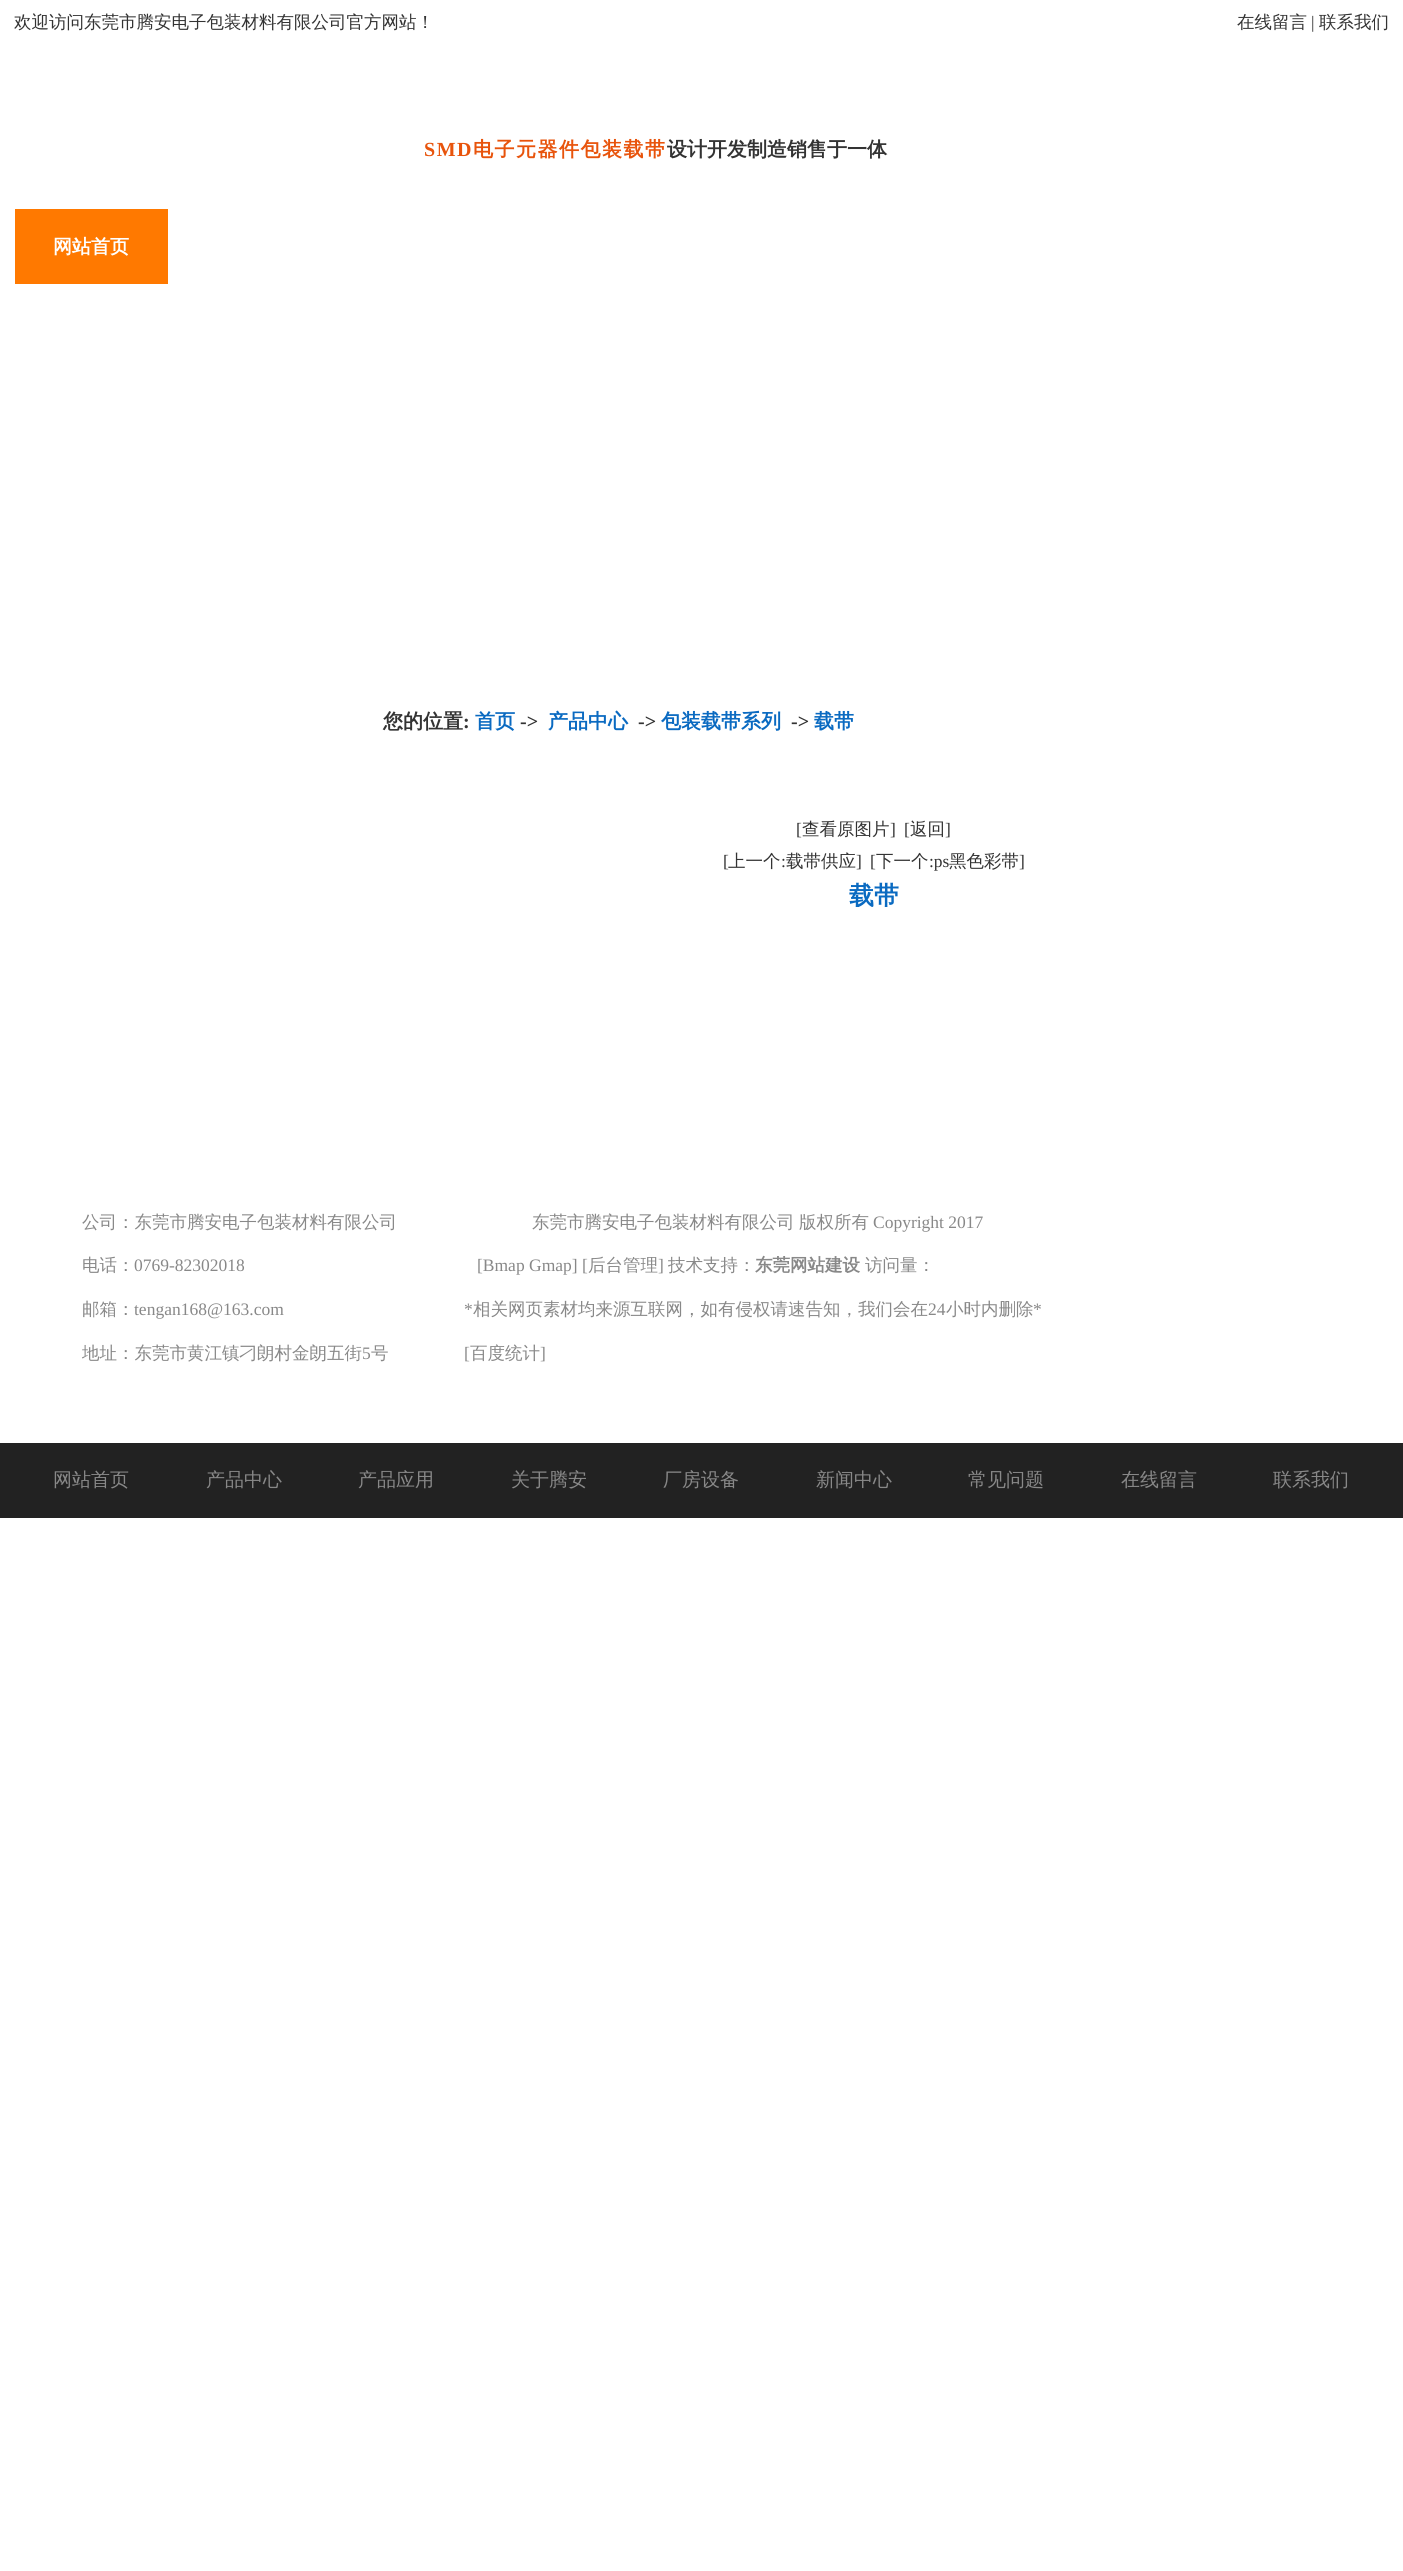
import math
import cairo

surface = cairo.ImageSurface(cairo.FORMAT_RGB24, 1403, 2571)
c = cairo.Context(surface)
options = cairo.FontOptions()
options.set_hint_metrics(cairo.HINT_METRICS_OFF)
options.set_hint_style(cairo.HINT_STYLE_NONE)
c.set_font_options(options)
c.set_miter_limit(4)
def C(code):
 c.set_source_rgb(*(v / 255 for v in bytes.fromhex(code[-6:])))
def F(family, size, italic, bold):
 c.select_font_face(family, cairo.FONT_SLANT_ITALIC if italic else cairo.FONT_SLANT_NORMAL, cairo.FONT_WEIGHT_BOLD if bold else cairo.FONT_WEIGHT_NORMAL)
 c.set_font_size(size)
def T(x, y, s):
 c.move_to(x, y)
 c.show_text(s)
def L(x, y, s, letter, word):
 c.move_to(x, y)
 for ch in s:
  c.show_text(ch)
  c.rel_move_to(letter + word * (ch == ' '), 0)
def R(x, y, w, h):
 c.rectangle(x, y, w, h)
 c.fill()
C('ffffff')
c.paint()
F('WenQuanYi Zen Hei Medium',17.5,0,0)
C('333333')
T(14,28,'欢迎访问东莞市腾安电子包装材料有限公司官方网站！')
T(1237,28,'在线留言')
F('Liberation Serif',17.5,0,0)
T(1311,28,'|')
F('WenQuanYi Zen Hei Medium',17.5,0,0)
T(1319,28,'联系我们')
F('Liberation Serif',20,0,1)
C('e8540c')
L(424,156,'SMD',1.5,0)
F('WenQuanYi Zen Hei',20,0,1)
L(473,156,'电子元器件包装载带',1.5,0)
C('333333')
T(667,156,'设计开发制造销售于一体')
C('ff7900')
R(15,209,153,75)
F('WenQuanYi Zen Hei',19,0,1)
C('ffffff')
T(53,253,'网站首页')
F('WenQuanYi Zen Hei',20,0,1)
C('333333')
T(383,728,'您的位置')
F('Liberation Serif',20,0,1)
T(463,728,':')
F('WenQuanYi Zen Hei',20,0,1)
C('0a6ac1')
T(475,728,'首页')
F('Liberation Serif',20,0,1)
C('333333')
T(520,728,'->')
F('WenQuanYi Zen Hei',20,0,1)
C('0a6ac1')
T(548,728,'产品中心')
F('Liberation Serif',20,0,1)
C('333333')
T(638,728,'->')
F('WenQuanYi Zen Hei',20,0,1)
C('0a6ac1')
T(661,728,'包装载带系列')
F('Liberation Serif',20,0,1)
C('333333')
T(791,728,'->')
F('WenQuanYi Zen Hei',20,0,1)
C('0a6ac1')
T(814,728,'载带')
F('Liberation Serif',17.5,0,0)
C('333333')
T(796,835,'[')
F('WenQuanYi Zen Hei Medium',17.5,0,0)
T(802,835,'查看原图片')
F('Liberation Serif',17.5,0,0)
T(890,835,']')
T(904,835,'[')
F('WenQuanYi Zen Hei Medium',17.5,0,0)
T(910,835,'返回')
F('Liberation Serif',17.5,0,0)
T(945,835,']')
T(723,867,'[')
F('WenQuanYi Zen Hei Medium',17.5,0,0)
T(728,867,'上一个')
F('Liberation Serif',17.5,0,0)
T(781,867,':')
F('WenQuanYi Zen Hei Medium',17.5,0,0)
T(786,867,'载带供应')
F('Liberation Serif',17.5,0,0)
T(856,867,']')
T(870,867,'[')
F('WenQuanYi Zen Hei Medium',17.5,0,0)
T(876,867,'下一个')
F('Liberation Serif',17.5,0,0)
T(929,867,':ps')
F('WenQuanYi Zen Hei Medium',17.5,0,0)
T(949,867,'黑色彩带')
F('Liberation Serif',17.5,0,0)
T(1019,867,']')
F('WenQuanYi Zen Hei',25,0,1)
C('0a6ac1')
T(849,904,'载带')
F('WenQuanYi Zen Hei Medium',17.5,0,0)
C('888888')
T(82,1228,'公司：东莞市腾安电子包装材料有限公司')
T(82,1271,'电话：')
F('Liberation Serif',17.5,0,0)
T(134,1271,'0769-82302018')
F('WenQuanYi Zen Hei Medium',17.5,0,0)
T(82,1315,'邮箱：')
F('Liberation Serif',17.5,0,0)
T(134,1315,'tengan168@163.com')
F('WenQuanYi Zen Hei Medium',17.5,0,0)
T(82,1359,'地址：东莞市黄江镇刁朗村金朗五街')
F('Liberation Serif',17.5,0,0)
T(362,1359,'5')
F('WenQuanYi Zen Hei Medium',17.5,0,0)
T(371,1359,'号')
T(532,1228,'东莞市腾安电子包装材料有限公司')
T(799,1228,'版权所有')
F('Liberation Serif',17.5,0,0)
T(873,1228,'Copyright 2017')
T(477,1271,'[Bmap Gmap] [')
F('WenQuanYi Zen Hei Medium',17.5,0,0)
T(588,1271,'后台管理')
F('Liberation Serif',17.5,0,0)
T(658,1271,']')
F('WenQuanYi Zen Hei Medium',17.5,0,0)
T(668,1271,'技术支持：')
F('WenQuanYi Zen Hei',17.5,0,1)
T(755,1271,'东莞网站建设')
F('WenQuanYi Zen Hei Medium',17.5,0,0)
T(865,1271,'访问量：')
F('Liberation Serif',17.5,0,0)
T(464,1315,'*')
F('WenQuanYi Zen Hei Medium',17.5,0,0)
T(473,1315,'相关网页素材均来源互联网，如有侵权请速告知，我们会在')
F('Liberation Serif',17.5,0,0)
T(928,1315,'24')
F('WenQuanYi Zen Hei Medium',17.5,0,0)
T(946,1315,'小时内删除')
F('Liberation Serif',17.5,0,0)
T(1033,1315,'*')
T(464,1359,'[')
F('WenQuanYi Zen Hei Medium',17.5,0,0)
T(470,1359,'百度统计')
F('Liberation Serif',17.5,0,0)
T(540,1359,']')
C('222222')
R(0,1443,1403,75)
F('WenQuanYi Zen Hei Medium',19,0,0)
C('888888')
T(53,1486,'网站首页')
T(206,1486,'产品中心')
T(358,1486,'产品应用')
T(511,1486,'关于腾安')
T(663,1486,'厂房设备')
T(816,1486,'新闻中心')
T(968,1486,'常见问题')
T(1121,1486,'在线留言')
T(1273,1486,'联系我们')
surface.write_to_png('o.png')
